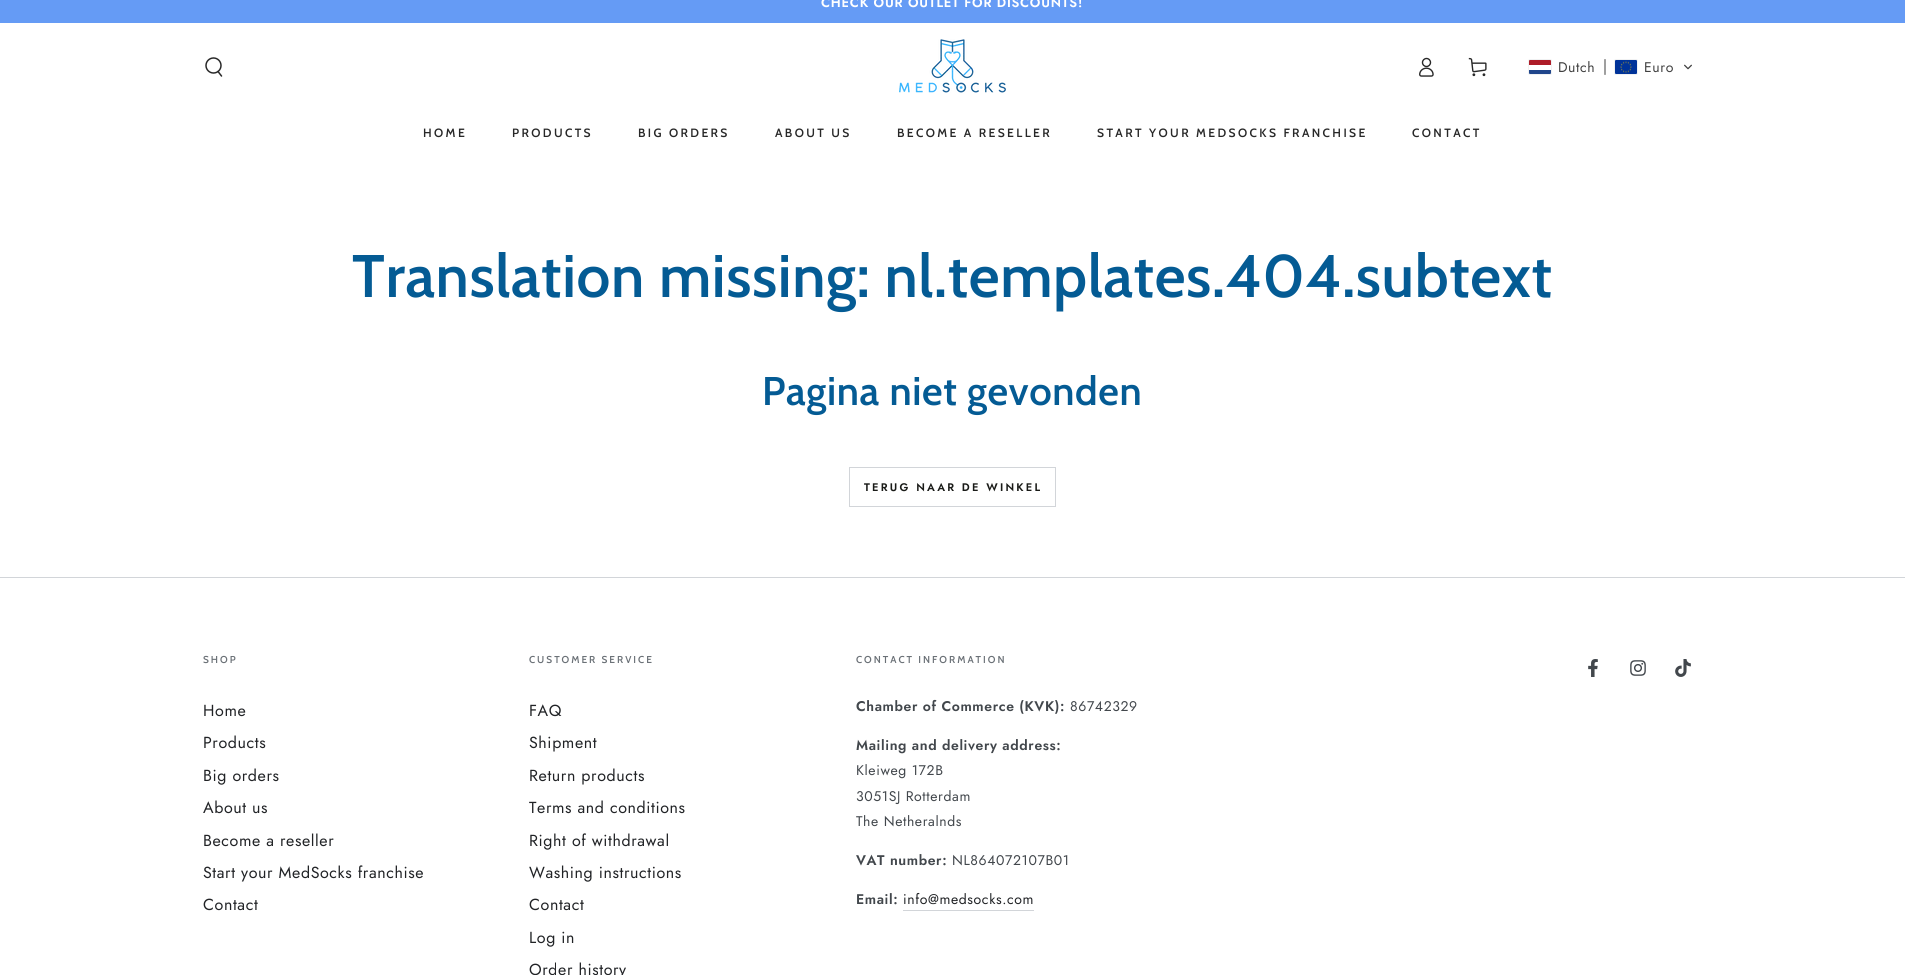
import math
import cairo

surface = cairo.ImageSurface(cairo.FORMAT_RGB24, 1905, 975)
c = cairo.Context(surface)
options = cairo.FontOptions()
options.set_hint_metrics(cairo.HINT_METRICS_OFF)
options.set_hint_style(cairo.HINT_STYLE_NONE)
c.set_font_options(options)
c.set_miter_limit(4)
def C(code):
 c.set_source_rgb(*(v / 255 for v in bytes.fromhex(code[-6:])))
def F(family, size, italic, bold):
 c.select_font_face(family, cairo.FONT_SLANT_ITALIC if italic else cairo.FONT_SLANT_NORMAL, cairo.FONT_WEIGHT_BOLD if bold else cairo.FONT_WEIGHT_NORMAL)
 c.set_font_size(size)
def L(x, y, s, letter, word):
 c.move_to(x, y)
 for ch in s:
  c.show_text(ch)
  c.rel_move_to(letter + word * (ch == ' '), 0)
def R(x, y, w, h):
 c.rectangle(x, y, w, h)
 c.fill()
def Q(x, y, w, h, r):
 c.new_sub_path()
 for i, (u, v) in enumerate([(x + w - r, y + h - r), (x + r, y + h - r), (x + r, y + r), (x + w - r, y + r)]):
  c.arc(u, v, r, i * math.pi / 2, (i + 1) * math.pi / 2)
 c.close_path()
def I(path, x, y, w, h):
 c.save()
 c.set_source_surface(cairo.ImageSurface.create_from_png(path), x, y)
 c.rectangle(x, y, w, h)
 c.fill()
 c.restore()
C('ffffff')
c.paint()
C('659bf5')
R(0,0,1905,23)
F('Jost SemiBold',13,0,0)
C('ffffff')
L(821,7,'CHECK OUR OUTLET FOR DISCOUNTS!',.75,0)
c.new_path()
c.arc(213.5,65.5,7.5,0,2 * math.pi)
C('282828')
c.set_line_width(1.5)
c.stroke()
c.new_path()
c.move_to(218,71.5)
c.line_to(221.5,76)
c.set_line_cap(cairo.LINE_CAP_ROUND)
c.stroke()
I('1.png',899,39,107,54)
I('2.png',1419,57,15,20)
I('3.png',1468,57,19,20)
Q(1528.5,59.5,23,15,1.5)
C('f0f1f2')
c.set_line_width(1)
c.set_line_cap(cairo.LINE_CAP_BUTT)
c.stroke()
C('21468b')
Q(1529,60,22,14,1)
c.fill()
C('ffffff')
c.new_path()
c.move_to(1530,60)
c.line_to(1550,60)
c.curve_to(1550.5,60,1551,60.5,1551,61)
c.line_to(1551,70)
c.line_to(1529,70)
c.line_to(1529,61)
c.curve_to(1529,60.5,1529.5,60,1530,60)
c.close_path()
c.fill()
C('ae1c28')
c.new_path()
c.move_to(1530,60)
c.line_to(1550,60)
c.curve_to(1550.5,60,1551,60.5,1551,61)
c.line_to(1551,65)
c.line_to(1529,65)
c.line_to(1529,61)
c.curve_to(1529,60.5,1529.5,60,1530,60)
c.close_path()
c.fill()
F('Jost',14,0,0)
C('404040')
L(1558,72,'Dutch',.6,0)
I('4.png',1604,59,2,16)
Q(1614.5,59.5,23,15,1.5)
C('f0f1f2')
c.stroke()
I('5.png',1615,60,22,14)
C('404040')
L(1644,72,'Euro',.6,0)
I('6.png',1684,64,8,6)
F('Cabin SemiBold',12,0,0)
C('282828')
L(423,137,'HOME',2.4,0)
L(512,137,'PRODUCTS',2.4,0)
L(638,137,'BIG ORDERS',2.4,0)
L(775,137,'ABOUT US',2.4,0)
L(897,137,'BECOME A RESELLER',2.4,0)
L(1097,137,'START YOUR MEDSOCKS FRANCHISE',2.4,0)
L(1412,137,'CONTACT',2.4,0)
F('Cabin SemiBold',60,0,0)
C('045b94')
L(352,297,'Translation missing: nl.templates.404.subtext',.6,0)
F('Cabin SemiBold',40,0,0)
L(762,405,'Pagina niet gevonden',.6,0)
c.rectangle(849.5,467.5,206,39)
C('d2d5d9')
c.stroke()
F('Jost SemiBold',11,0,0)
C('1a1b18')
L(864,491,'TERUG NAAR DE WINKEL',2.25,0)
C('d2d5d9')
R(0,577,1905,1)
F('Cabin SemiBold',10,0,0)
C('6b7177')
L(203,663,'SHOP',2,0)
F('Jost',16,0,0)
C('212326')
L(203,716,'Home',.6,0)
L(203,748,'Products',.6,0)
L(203,781,'Big orders',.6,0)
L(203,813,'About us',.6,0)
L(203,846,'Become a reseller',.6,0)
L(203,878,'Start your MedSocks franchise',.6,0)
L(203,910,'Contact',.6,0)
F('Cabin SemiBold',10,0,0)
C('6b7177')
L(529,663,'CUSTOMER SERVICE',2,0)
F('Jost',16,0,0)
C('212326')
L(529,716,'FAQ',.6,0)
L(529,748,'Shipment',.6,0)
L(529,781,'Return products',.6,0)
L(529,813,'Terms and conditions',.6,0)
L(529,846,'Right of withdrawal',.6,0)
L(529,878,'Washing instructions',.6,0)
L(529,910,'Contact',.6,0)
L(529,943,'Log in',.6,0)
L(529,975,'Order history',.6,0)
F('Cabin SemiBold',10,0,0)
C('6b7177')
L(856,663,'CONTACT INFORMATION',2,0)
F('Jost SemiBold',14,0,0)
C('42474c')
L(856,711,'Chamber of Commerce (KVK):',.6,0)
F('Jost',14,0,0)
L(1070,711,'86742329',.6,0)
F('Jost SemiBold',14,0,0)
L(856,750,'Mailing and delivery address:',.6,0)
F('Jost',14,0,0)
L(856,775,'Kleiweg 172B',.6,0)
L(856,801,'3051SJ Rotterdam',.6,0)
L(856,826,'The Netheralnds',.6,0)
F('Jost SemiBold',14,0,0)
L(856,865,'VAT number:',.6,0)
F('Jost',14,0,0)
L(952,865,'NL864072107B01',.6,0)
F('Jost SemiBold',14,0,0)
L(856,904,'Email:',.6,0)
F('Jost',14,0,0)
C('212326')
L(903,904,'info@medsocks.com',.6,0)
C('d2d5d9')
R(903,910,131,1)
I('7.png',1588,659,10,18)
I('8.png',1630,660,16,16)
I('9.png',1675,659,16,18)
surface.write_to_png('o.png')
